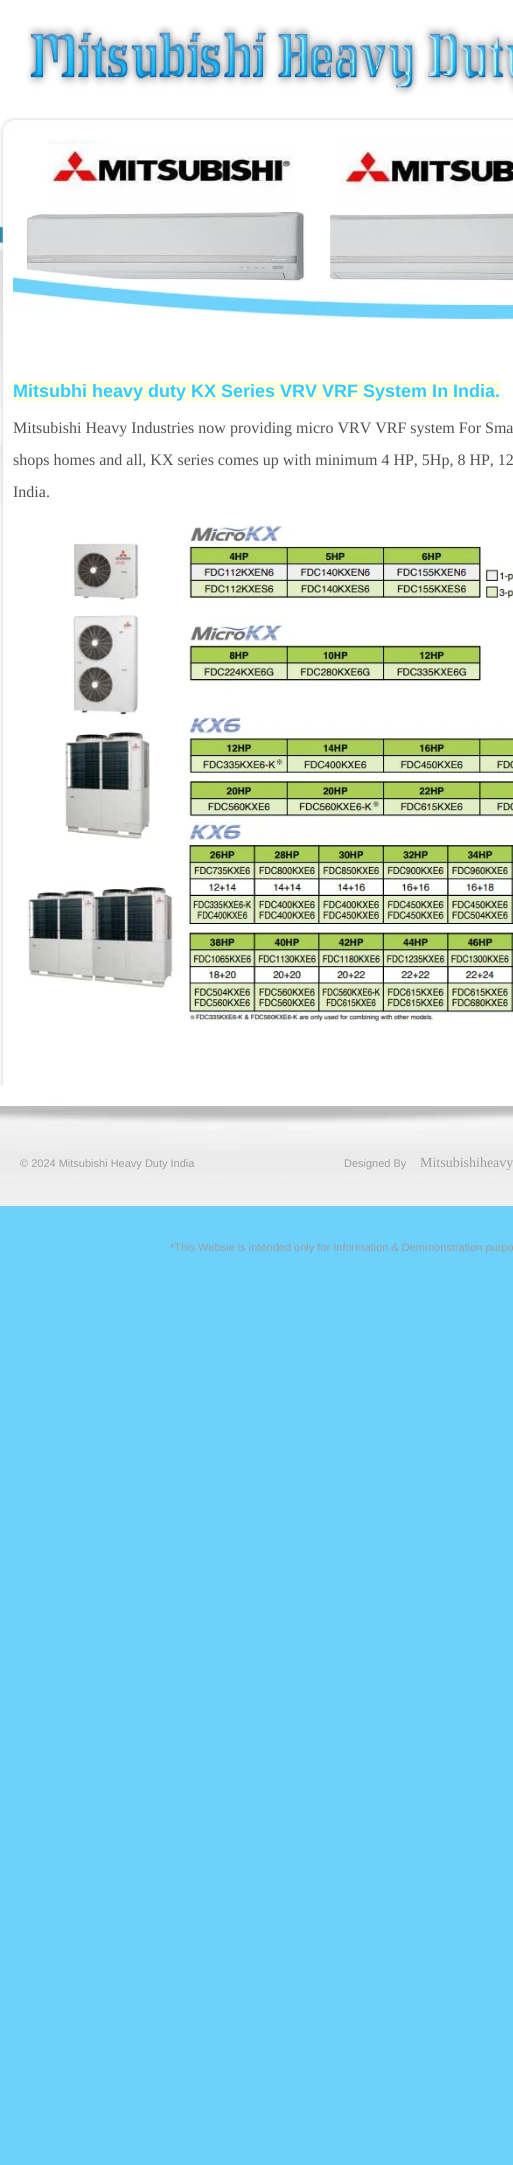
import math
import cairo

surface = cairo.ImageSurface(cairo.FORMAT_RGB24, 513, 2165)
c = cairo.Context(surface)
options = cairo.FontOptions()
options.set_hint_metrics(cairo.HINT_METRICS_OFF)
options.set_hint_style(cairo.HINT_STYLE_NONE)
c.set_font_options(options)
c.set_miter_limit(4)
def C(code):
 c.set_source_rgb(*(v / 255 for v in bytes.fromhex(code[-6:])))
def F(family, size, italic, bold):
 c.select_font_face(family, cairo.FONT_SLANT_ITALIC if italic else cairo.FONT_SLANT_NORMAL, cairo.FONT_WEIGHT_BOLD if bold else cairo.FONT_WEIGHT_NORMAL)
 c.set_font_size(size)
def T(x, y, s):
 c.move_to(x, y)
 c.show_text(s)
def R(x, y, w, h):
 c.rectangle(x, y, w, h)
 c.fill()
def I(path, x, y, w, h):
 c.save()
 c.set_source_surface(cairo.ImageSurface.create_from_png(path), x, y)
 c.rectangle(x, y, w, h)
 c.fill()
 c.restore()
C('6dd1fb')
c.paint()
C('ffffff')
R(0,0,513,1088)
I('1.png',27,25,486,71)
I('2.png',0,445,3,59)
I('3.png',0,160,3,285)
I('5.png',0,130,513,956)
I('4.png',0,115,513,16)
I('6.png',27,139,486,143)
I('7.png',13,269,500,51)
C('ffffe0')
R(13,381,487,20)
F('Liberation Sans',18,0,1)
C('33ccff')
T(13,397,'Mitsubhi heavy duty KX Series VRV VRF System In India.')
F('Liberation Serif',16,0,0)
C('505050')
T(13,433,'Mitsubishi Heavy Industries now providing micro VRV VRF system For Sma')
T(13,465,'shops homes and all, KX series comes up with minimum 4 HP, 5Hp, 8 HP, 12')
T(13,497,'India.')
I('8.png',27,525,486,497)
I('9.png',0,1150,513,56)
I('10.png',0,1088,513,62)
F('Liberation Sans',11,0,0)
C('9d9d9d')
T(20,1167,'© 2024 Mitsubishi Heavy Duty India')
T(344,1167,'Designed By')
F('Liberation Serif',14,0,0)
T(420,1167,'Mitsubishiheavy')
F('Liberation Sans',11,0,0)
T(170,1251,'*This Websie is intended only for Information & Demmonstration purpo')
surface.write_to_png('o.png')
